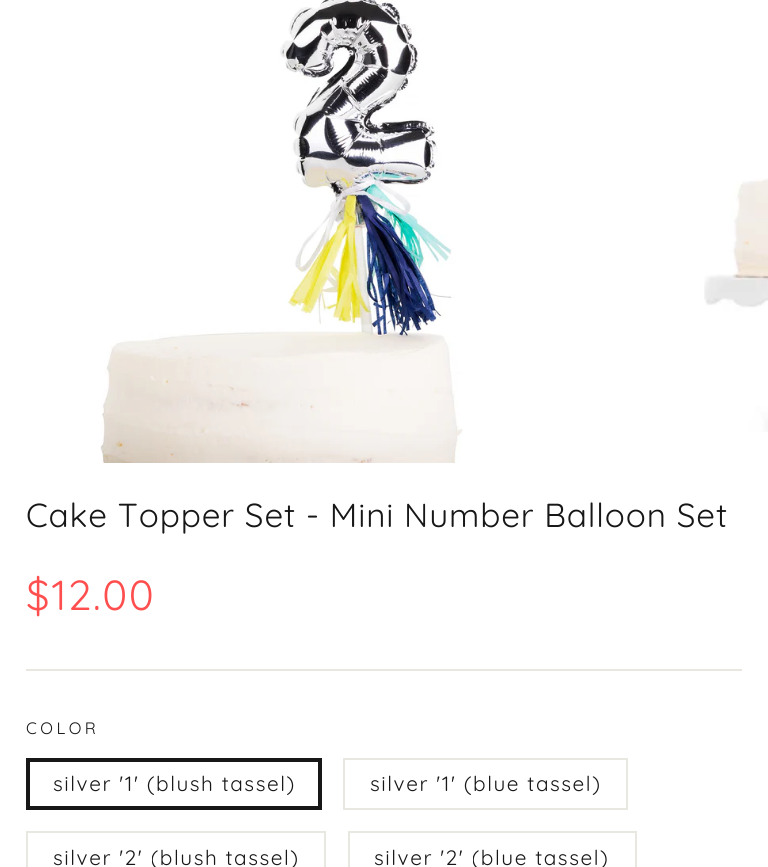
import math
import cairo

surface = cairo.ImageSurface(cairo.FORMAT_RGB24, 768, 867)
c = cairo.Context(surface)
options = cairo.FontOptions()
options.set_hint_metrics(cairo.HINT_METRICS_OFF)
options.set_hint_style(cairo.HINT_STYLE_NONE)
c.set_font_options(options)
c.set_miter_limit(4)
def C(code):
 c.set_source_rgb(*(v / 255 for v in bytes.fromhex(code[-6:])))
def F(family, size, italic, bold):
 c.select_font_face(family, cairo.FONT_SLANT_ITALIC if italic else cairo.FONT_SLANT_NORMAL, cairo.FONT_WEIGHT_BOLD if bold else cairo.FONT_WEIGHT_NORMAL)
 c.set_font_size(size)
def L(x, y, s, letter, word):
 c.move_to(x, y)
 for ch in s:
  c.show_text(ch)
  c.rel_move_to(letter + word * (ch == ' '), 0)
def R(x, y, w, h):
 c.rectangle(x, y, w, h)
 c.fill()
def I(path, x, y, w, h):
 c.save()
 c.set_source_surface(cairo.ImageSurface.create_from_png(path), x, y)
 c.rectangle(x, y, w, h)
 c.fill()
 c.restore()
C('ffffff')
c.paint()
I('1.png',100,0,363,463)
I('2.png',704,178,64,254)
F('Quicksand',33.25,0,0)
C('171717')
L(26,527,'Cake Topper Set - Mini Number Balloon Set',.85,0)
F('Quicksand',42,0,0)
C('ff4e4e')
L(26,610,'$12.00',1.55,0)
C('e8e8e1')
R(26,669,716,2)
F('Quicksand',16.5,0,0)
C('171717')
L(26,734,'COLOR',3.5,0)
c.rectangle(28,760,292,48)
c.set_line_width(4)
c.stroke()
F('Quicksand',20.75,0,0)
L(53,791,'silver \'1\' (blush tassel)',1.55,0)
c.rectangle(344,759,283,50)
C('e8e8e1')
c.set_line_width(2)
c.stroke()
C('171717')
L(370,791,'silver \'1\' (blue tassel)',1.55,0)
c.rectangle(27,832,298,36)
C('e8e8e1')
c.stroke()
C('171717')
L(53,865,'silver \'2\' (blush tassel)',1.55,0)
c.rectangle(349,832,287,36)
C('e8e8e1')
c.stroke()
C('171717')
L(374,865,'silver \'2\' (blue tassel)',1.55,0)
surface.write_to_png('o.png')
